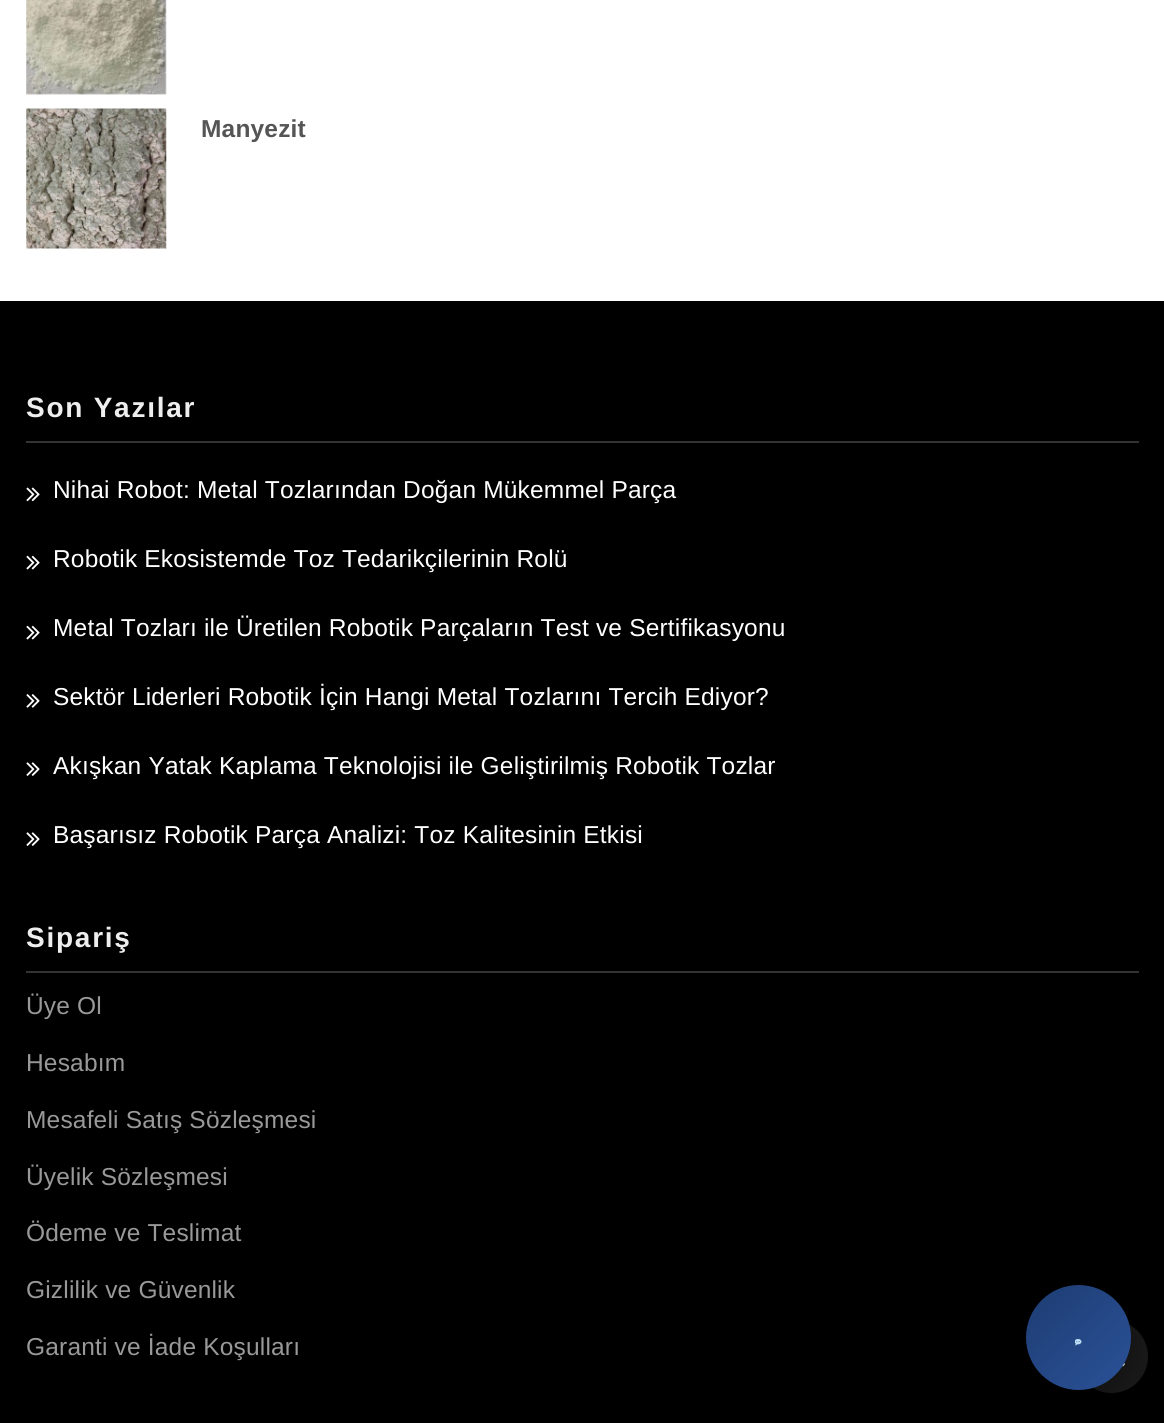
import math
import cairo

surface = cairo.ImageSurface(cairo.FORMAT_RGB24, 1164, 1423)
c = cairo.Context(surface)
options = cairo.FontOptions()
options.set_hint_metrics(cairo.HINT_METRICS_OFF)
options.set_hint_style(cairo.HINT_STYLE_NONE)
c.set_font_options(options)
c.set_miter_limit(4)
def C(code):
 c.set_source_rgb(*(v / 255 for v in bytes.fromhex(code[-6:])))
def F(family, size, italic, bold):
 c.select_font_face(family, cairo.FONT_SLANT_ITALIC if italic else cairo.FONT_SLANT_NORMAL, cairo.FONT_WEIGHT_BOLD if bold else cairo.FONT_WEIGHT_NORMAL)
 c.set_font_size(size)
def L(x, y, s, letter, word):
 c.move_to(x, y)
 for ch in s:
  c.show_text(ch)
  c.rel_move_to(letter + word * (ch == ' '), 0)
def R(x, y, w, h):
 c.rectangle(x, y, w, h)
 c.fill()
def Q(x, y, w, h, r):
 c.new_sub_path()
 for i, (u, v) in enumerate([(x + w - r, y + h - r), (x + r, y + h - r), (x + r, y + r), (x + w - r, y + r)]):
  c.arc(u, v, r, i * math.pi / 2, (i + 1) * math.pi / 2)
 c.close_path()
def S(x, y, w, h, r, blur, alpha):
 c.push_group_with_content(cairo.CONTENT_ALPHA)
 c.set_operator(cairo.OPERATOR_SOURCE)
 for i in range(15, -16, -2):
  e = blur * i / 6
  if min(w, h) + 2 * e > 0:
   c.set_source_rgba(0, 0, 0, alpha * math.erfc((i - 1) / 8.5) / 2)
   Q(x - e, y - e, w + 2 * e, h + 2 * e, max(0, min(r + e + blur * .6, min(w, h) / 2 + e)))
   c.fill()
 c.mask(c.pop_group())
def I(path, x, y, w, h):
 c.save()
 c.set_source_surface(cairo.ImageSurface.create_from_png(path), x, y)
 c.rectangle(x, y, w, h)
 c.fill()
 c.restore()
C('000000')
c.paint()
C('ffffff')
R(0,0,1164,301)
I('1.png',26,0,141,95)
I('2.png',26,108,141,141)
F('Liberation Sans',24.5,0,1)
C('555555')
L(201,137,'Manyezit',.18,0)
C('333333')
R(26,441,1113,2)
F('Liberation Sans',28,0,1)
C('eeeeee')
L(26,417,'Son Yazılar',1.75,0)
I('3.png',26,487,14,15)
F('Liberation Sans',24.5,0,0)
C('ffffff')
L(53,498,'Nihai Robot: Metal Tozlarından Doğan Mükemmel Parça',.18,0)
I('4.png',26,555,14,15)
L(53,567,'Robotik Ekosistemde Toz Tedarikçilerinin Rolü',.18,0)
I('4.png',26,625,14,15)
L(53,636,'Metal Tozları ile Üretilen Robotik Parçaların Test ve Sertifikasyonu',.18,0)
I('5.png',26,694,14,14)
L(53,705,'Sektör Liderleri Robotik İçin Hangi Metal Tozlarını Tercih Ediyor?',.18,0)
I('6.png',26,762,14,14)
L(53,774,'Akışkan Yatak Kaplama Teknolojisi ile Geliştirilmiş Robotik Tozlar',.18,0)
I('6.png',26,832,14,14)
L(53,843,'Başarısız Robotik Parça Analizi: Toz Kalitesinin Etkisi',.18,0)
C('333333')
R(26,971,1113,2)
F('Liberation Sans',28,0,1)
C('eeeeee')
L(26,947,'Sipariş',1.75,0)
F('Liberation Sans',24.5,0,0)
C('999999')
L(26,1014,'Üye Ol',.18,0)
L(26,1071,'Hesabım',.18,0)
L(26,1128,'Mesafeli Satış Sözleşmesi',.18,0)
L(26,1185,'Üyelik Sözleşmesi',.18,0)
L(26,1241,'Ödeme ve Teslimat',.18,0)
L(26,1298,'Gizlilik ve Güvenlik',.18,0)
L(26,1355,'Garanti ve İade Koşulları',.18,0)
C('191919')
c.new_path()
c.arc(1111.5,1356.5,36.5,0,2 * math.pi)
c.fill()
I('8.png',1122,1363,3,4)
C('000000')
S(1026,1292,105,105,52.5,13,.3)
gradient = cairo.LinearGradient(1026,1285,1131,1390)
gradient.add_color_stop_rgba(0,0.118,0.235,0.447,1)
gradient.add_color_stop_rgba(1,0.165,0.322,0.596,1)
c.set_source(gradient)
c.arc(1078.5,1337.5,52.5,0,2 * math.pi)
c.fill()
I('7.png',1075,1339,7,7)
surface.write_to_png('o.png')
